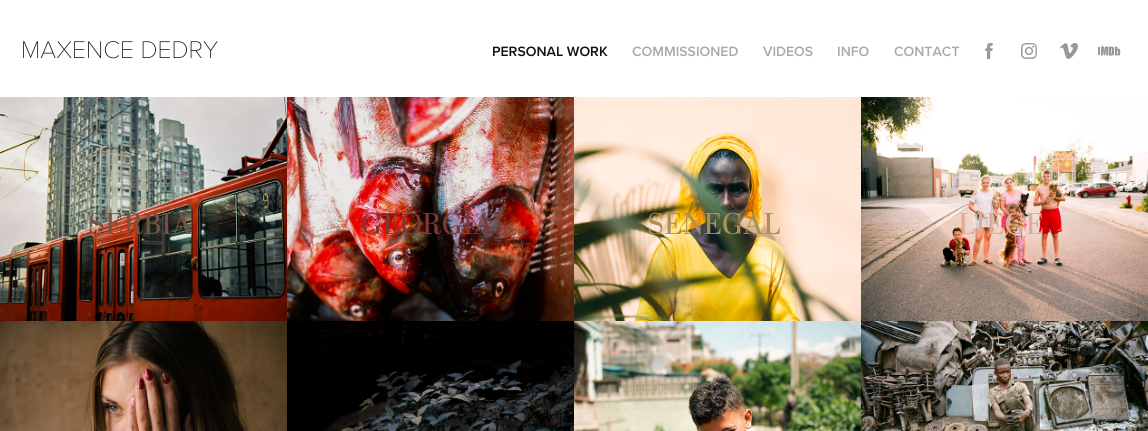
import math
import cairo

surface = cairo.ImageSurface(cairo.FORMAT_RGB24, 1148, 431)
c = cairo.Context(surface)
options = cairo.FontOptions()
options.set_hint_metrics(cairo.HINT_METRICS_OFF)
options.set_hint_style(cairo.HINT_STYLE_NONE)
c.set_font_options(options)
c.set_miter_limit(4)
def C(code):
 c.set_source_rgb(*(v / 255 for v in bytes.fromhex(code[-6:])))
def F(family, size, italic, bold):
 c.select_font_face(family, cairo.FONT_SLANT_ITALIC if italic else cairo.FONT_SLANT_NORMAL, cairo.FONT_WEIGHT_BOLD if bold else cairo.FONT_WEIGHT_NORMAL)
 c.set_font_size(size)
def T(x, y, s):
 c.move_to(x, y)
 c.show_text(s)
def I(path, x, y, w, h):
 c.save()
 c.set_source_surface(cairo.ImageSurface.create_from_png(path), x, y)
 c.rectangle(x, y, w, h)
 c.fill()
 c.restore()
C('ffffff')
c.paint()
F('Proxima Nova Thin',25,0,0)
C('111111')
T(21,58,'MAXENCE DEDRY')
F('Proxima Nova SemiBold',14,0,0)
T(492,56,'PERSONAL WORK')
C('aaaaaa')
T(632,56,'COMMISSIONED')
T(763,56,'VIDEOS')
T(837,56,'INFO')
T(894,56,'CONTACT')
I('1.png',985,43,8,16)
I('2.png',1021,43,16,16)
I('3.png',1060,43,18,16)
I('4.png',1098,46,23,10)
I('5.png',0,97,287,224)
F('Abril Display',30,0,0)
C('755242')
T(88,234,'SERBIA')
I('6.png',287,97,287,224)
C('803635')
T(361,234,'GEORGIA')
I('7.png',574,97,287,224)
C('a9915a')
T(647,234,'SENEGAL')
I('8.png',861,97,287,224)
C('ddaa9c')
T(958,234,'LIEGE')
I('9.png',0,321,287,110)
I('10.png',287,321,287,110)
I('11.png',574,321,287,110)
I('12.png',861,321,287,110)
surface.write_to_png('o.png')
